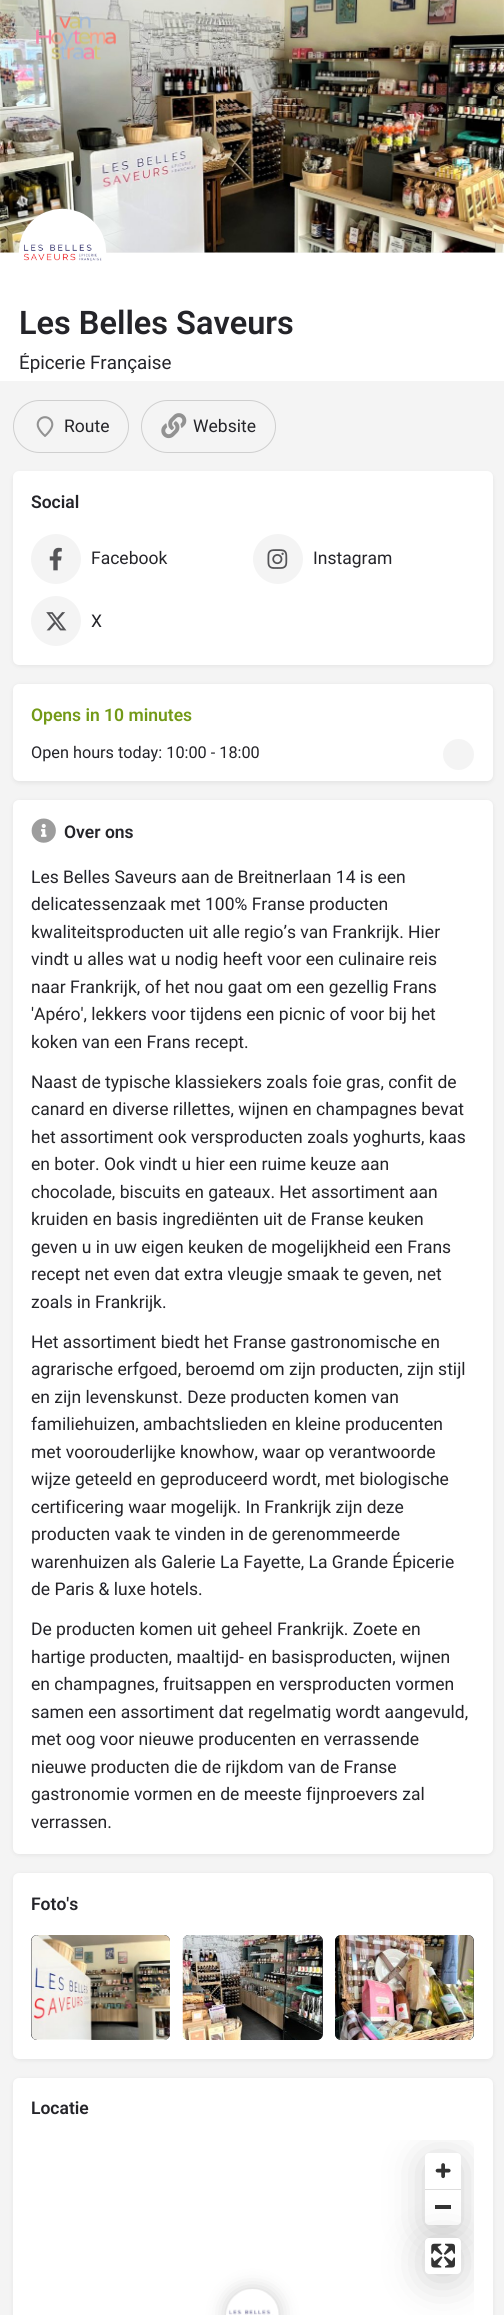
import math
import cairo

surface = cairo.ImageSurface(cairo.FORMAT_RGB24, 504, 2315)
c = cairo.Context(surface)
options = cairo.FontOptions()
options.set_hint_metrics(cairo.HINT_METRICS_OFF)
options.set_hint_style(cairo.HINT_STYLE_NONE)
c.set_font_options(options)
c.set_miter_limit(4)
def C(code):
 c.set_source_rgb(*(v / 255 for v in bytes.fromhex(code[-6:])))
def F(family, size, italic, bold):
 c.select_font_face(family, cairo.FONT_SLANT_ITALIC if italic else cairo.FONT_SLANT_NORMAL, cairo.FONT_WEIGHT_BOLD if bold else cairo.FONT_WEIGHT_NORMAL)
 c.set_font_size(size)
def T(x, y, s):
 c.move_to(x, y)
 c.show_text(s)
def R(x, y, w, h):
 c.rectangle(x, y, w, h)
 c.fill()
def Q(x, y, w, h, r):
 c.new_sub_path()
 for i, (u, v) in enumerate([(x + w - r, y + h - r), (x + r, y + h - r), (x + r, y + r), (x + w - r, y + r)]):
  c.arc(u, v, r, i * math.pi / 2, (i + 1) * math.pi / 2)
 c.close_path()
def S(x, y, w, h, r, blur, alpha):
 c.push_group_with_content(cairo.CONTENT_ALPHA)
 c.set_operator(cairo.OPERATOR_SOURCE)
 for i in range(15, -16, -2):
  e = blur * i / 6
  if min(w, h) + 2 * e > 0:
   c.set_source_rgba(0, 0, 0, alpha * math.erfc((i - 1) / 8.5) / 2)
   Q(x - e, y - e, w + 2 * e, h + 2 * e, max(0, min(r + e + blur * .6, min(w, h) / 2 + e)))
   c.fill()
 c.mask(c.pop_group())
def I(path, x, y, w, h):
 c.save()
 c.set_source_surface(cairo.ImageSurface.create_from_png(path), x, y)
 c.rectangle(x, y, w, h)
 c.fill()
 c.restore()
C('f4f4f4')
c.paint()
I('2.png',0,0,504,253)
I('1.png',36,16,80,44)
C('ffffff')
R(0,253,504,128)
I('3.png',18,208,89,88)
F('Roboto SemiBold',32.5,0,0)
C('242429')
T(19,334,'Les Belles Saveurs')
c.save()
c.rectangle(19,353,152,25)
c.clip()
F('Roboto',18.75,0,0)
T(19,369,'Épicerie Française')
c.restore()
Q(13.5,400.5,115,52,26)
C('cfcfcf')
c.set_line_width(1)
c.stroke()
I('4.png',36,416,18,21)
F('Roboto',17.5,0,0)
C('242429')
T(64,432,'Route')
Q(141.5,400.5,134,52,26)
C('cfcfcf')
c.stroke()
I('5.png',161,413,26,26)
C('242429')
T(193,432,'Website')
C('000000')
S(13,473,480,193,6,2.5,.07)
C('ffffff')
Q(13,471,480,194,6)
c.fill()
F('Roboto SemiBold',17.5,0,0)
C('242429')
T(31,508,'Social')
C('f4f4f4')
c.new_path()
c.arc(56,559,25,0,2 * math.pi)
c.fill()
I('6.png',49,547,13,24)
F('Roboto',17.5,0,0)
C('242429')
T(91,564,'Facebook')
C('f4f4f4')
c.new_path()
c.arc(278,559,25,0,2 * math.pi)
c.fill()
I('7.png',267,549,21,20)
C('242429')
T(313,564,'Instagram')
C('f4f4f4')
c.new_path()
c.arc(56,621,25,0,2 * math.pi)
c.fill()
I('8.png',46,612,21,19)
C('242429')
T(91,627,'X')
C('000000')
S(13,685,480,98,6,2.5,.07)
C('ffffff')
Q(13,684,480,97,6)
c.fill()
F('Roboto SemiBold',17.5,0,0)
C('739a17')
T(31,721,'Opens in 10 minutes')
F('Roboto',16.25,0,0)
C('242429')
T(31,758,'Open hours today: 10:00 - 18:00')
C('f4f4f4')
c.new_path()
c.arc(458.5,754.5,15.5,0,2 * math.pi)
c.fill()
C('000000')
S(13,801,480,1054,6,2.5,.07)
C('ffffff')
Q(13,800,480,1054,6)
c.fill()
I('9.png',31,818,25,25)
F('Roboto SemiBold',17.5,0,0)
C('242429')
T(64,838,'Over ons')
F('Roboto',17.5,0,0)
T(31,883,'Les Belles Saveurs aan de Breitnerlaan 14 is een')
T(31,910,'delicatessenzaak met 100% Franse producten')
T(31,938,'kwaliteitsproducten uit alle regio’s van Frankrijk. Hier')
T(31,965,'vindt u alles wat u nodig heeft voor een culinaire reis')
T(31,993,'naar Frankrijk, of het nou gaat om een gezellig Frans')
T(31,1020,'\'Apéro\', lekkers voor tijdens een picnic of voor bij het')
T(31,1048,'koken van een Frans recept.')
T(31,1088,'Naast de typische klassiekers zoals foie gras, confit de')
T(31,1115,'canard en diverse rillettes, wijnen en champagnes bevat')
T(31,1143,'het assortiment ook versproducten zoals yoghurts, kaas')
T(31,1170,'en boter. Ook vindt u hier een ruime keuze aan')
T(31,1198,'chocolade, biscuits en gateaux. Het assortiment aan')
T(31,1225,'kruiden en basis ingrediënten uit de Franse keuken')
T(31,1253,'geven u in uw eigen keuken de mogelijkheid een Frans')
T(31,1280,'recept net even dat extra vleugje smaak te geven, net')
T(31,1308,'zoals in Frankrijk.')
T(31,1348,'Het assortiment biedt het Franse gastronomische en')
T(31,1375,'agrarische erfgoed, beroemd om zijn producten, zijn stijl')
T(31,1403,'en zijn levenskunst. Deze producten komen van')
T(31,1430,'familiehuizen, ambachtslieden en kleine producenten')
T(31,1458,'met voorouderlijke knowhow, waar op verantwoorde')
T(31,1485,'wijze geteeld en geproduceerd wordt, met biologische')
T(31,1513,'certificering waar mogelijk. In Frankrijk zijn deze')
T(31,1540,'producten vaak te vinden in de gerenommeerde')
T(31,1568,'warenhuizen als Galerie La Fayette, La Grande Épicerie')
T(31,1595,'de Paris & luxe hotels.')
T(31,1635,'De producten komen uit geheel Frankrijk. Zoete en')
T(31,1663,'hartige producten, maaltijd- en basisproducten, wijnen')
T(31,1690,'en champagnes, fruitsappen en versproducten vormen')
T(31,1718,'samen een assortiment dat regelmatig wordt aangevuld,')
T(31,1745,'met oog voor nieuwe producenten en verrassende')
T(31,1773,'nieuwe producten die de rijkdom van de Franse')
T(31,1800,'gastronomie vormen en de meeste fijnproevers zal')
T(31,1828,'verrassen.')
C('000000')
S(13,1874,480,186,6,2.5,.07)
C('ffffff')
Q(13,1873,480,186,6)
c.fill()
F('Roboto SemiBold',17.5,0,0)
C('242429')
T(31,1910,'Foto\'s')
Q(31,1935,139,105,6)
c.fill()
I('10.png',31,1935,139,105)
Q(183,1935,140,105,6)
c.fill()
I('11.png',182,1935,141,105)
Q(335,1935,139,105,6)
c.fill()
I('12.png',335,1935,139,105)
C('000000')
S(13,2079,480,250,6,2.5,.07)
C('ffffff')
Q(13,2078,480,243,6)
c.fill()
C('242429')
T(31,2114,'Locatie')
C('000000')
S(226,2289,53,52,26,9.5,.2)
I('13.png',226,2289,53,26)
c.save()
Q(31,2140,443,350,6)
c.clip()
S(425,2159,36,72,4,20.5,.2)
c.restore()
C('ffffff')
Q(425,2153,36,72,4)
c.fill()
I('14.png',435,2163,16,16)
C('dddddd')
R(425,2189,36,1)
C('333333')
R(435,2205,16,4)
c.save()
Q(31,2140,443,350,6)
c.clip()
C('000000')
S(425,2244,36,36,4,20.5,.2)
c.restore()
C('ffffff')
Q(425,2238,36,36,4)
c.fill()
I('15.png',431,2243,24,25)
surface.write_to_png('o.png')
